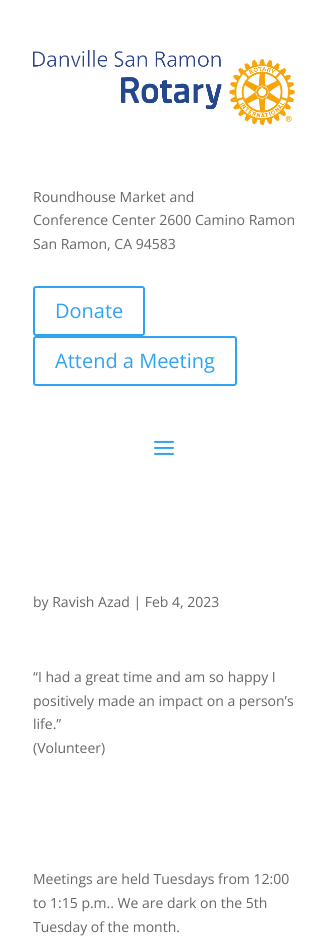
import math
import cairo

surface = cairo.ImageSurface(cairo.FORMAT_RGB24, 328, 948)
c = cairo.Context(surface)
options = cairo.FontOptions()
options.set_hint_metrics(cairo.HINT_METRICS_OFF)
options.set_hint_style(cairo.HINT_STYLE_NONE)
c.set_font_options(options)
c.set_miter_limit(4)
def C(code):
 c.set_source_rgb(*(v / 255 for v in bytes.fromhex(code[-6:])))
def F(family, size, italic, bold):
 c.select_font_face(family, cairo.FONT_SLANT_ITALIC if italic else cairo.FONT_SLANT_NORMAL, cairo.FONT_WEIGHT_BOLD if bold else cairo.FONT_WEIGHT_NORMAL)
 c.set_font_size(size)
def T(x, y, s):
 c.move_to(x, y)
 c.show_text(s)
def Q(x, y, w, h, r):
 c.new_sub_path()
 for i, (u, v) in enumerate([(x + w - r, y + h - r), (x + r, y + h - r), (x + r, y + r), (x + w - r, y + r)]):
  c.arc(u, v, r, i * math.pi / 2, (i + 1) * math.pi / 2)
 c.close_path()
def I(path, x, y, w, h):
 c.save()
 c.set_source_surface(cairo.ImageSurface.create_from_png(path), x, y)
 c.rectangle(x, y, w, h)
 c.fill()
 c.restore()
C('ffffff')
c.paint()
I('1.png',33,50,262,75)
F('Open Sans',14,0,0)
C('666666')
T(33,202,'Roundhouse Market and')
T(33,225,'Conference Center 2600 Camino Ramon')
T(33,249,'San Ramon, CA 94583')
Q(34,287,110,48,2)
C('2ea3f2')
c.stroke()
F('Open Sans',20,0,0)
T(55,318,'Donate')
Q(34,337,202,48,2)
c.stroke()
T(55,368,'Attend a Meeting')
I('2.png',154,440,20,15)
F('Open Sans',14,0,0)
C('666666')
T(33,607,'by Ravish Azad | Feb 4, 2023')
T(33,682,'“I had a great time and am so happy I')
T(33,706,'positively made an impact on a person’s')
T(33,729,'life.”')
T(33,753,'(Volunteer)')
T(33,884,'Meetings are held Tuesdays from 12:00')
T(33,908,'to 1:15 p.m.. We are dark on the 5th')
T(33,932,'Tuesday of the month.')
surface.write_to_png('o.png')
